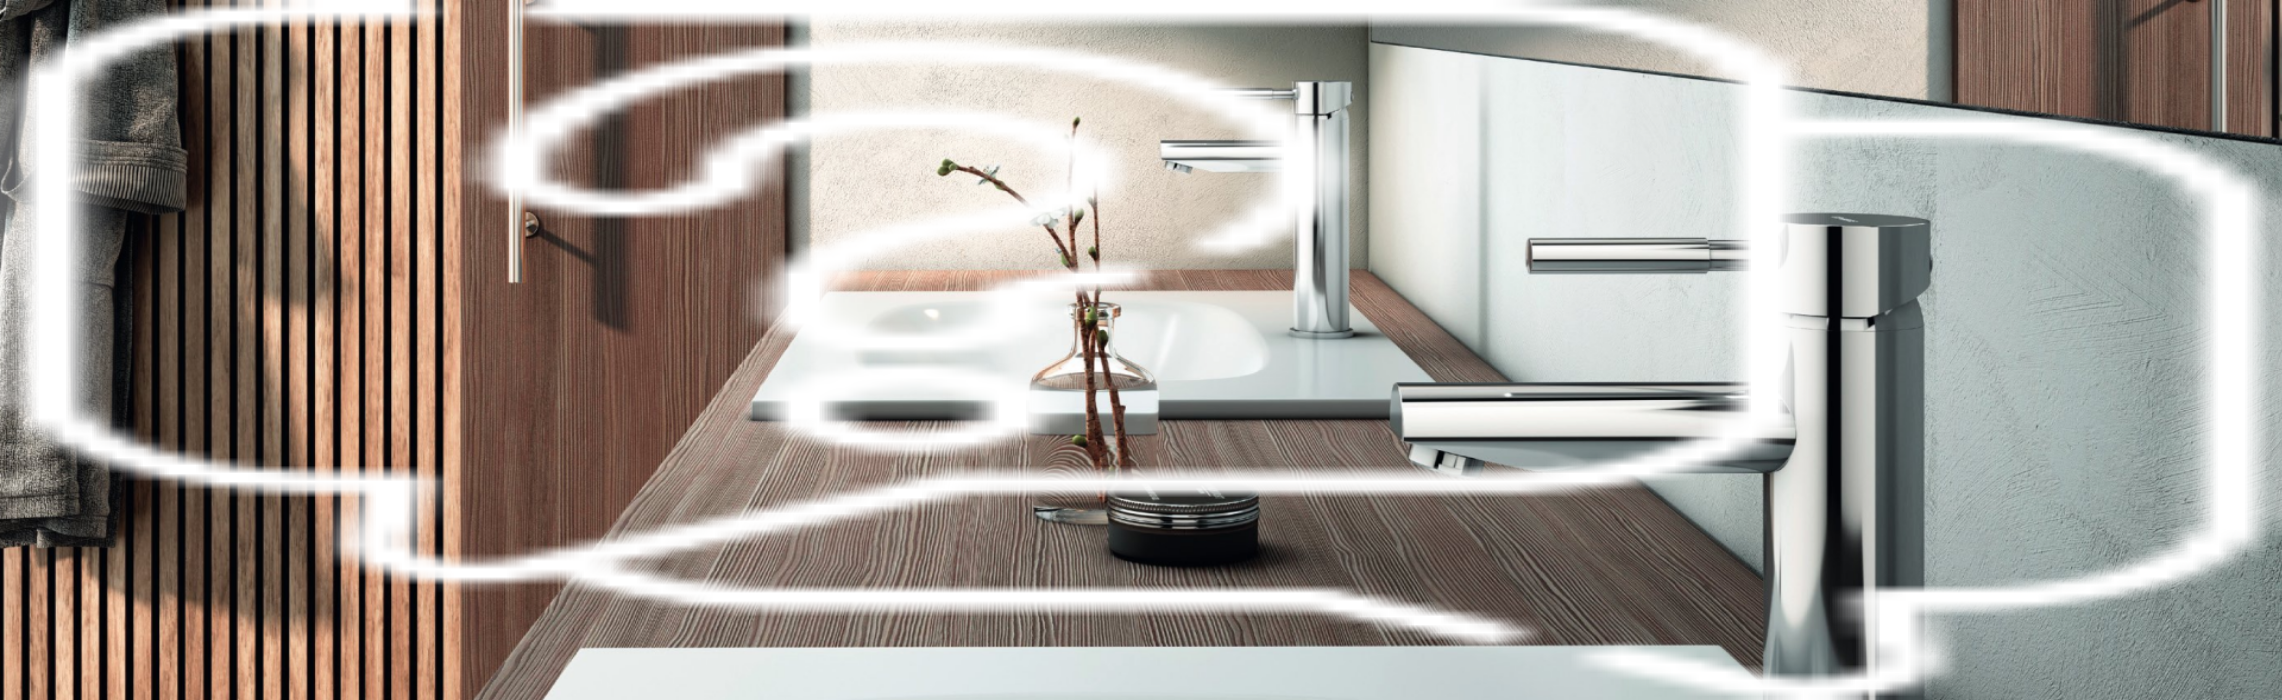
import math
import cairo

surface = cairo.ImageSurface(cairo.FORMAT_RGB24, 2282, 700)
c = cairo.Context(surface)
options = cairo.FontOptions()
options.set_hint_metrics(cairo.HINT_METRICS_OFF)
options.set_hint_style(cairo.HINT_STYLE_NONE)
c.set_font_options(options)
c.set_miter_limit(4)
def C(code):
 c.set_source_rgb(*(v / 255 for v in bytes.fromhex(code[-6:])))
def I(path, x, y, w, h):
 c.save()
 c.set_source_surface(cairo.ImageSurface.create_from_png(path), x, y)
 c.rectangle(x, y, w, h)
 c.fill()
 c.restore()
C('ffffff')
c.paint()
I('1.png',0,0,2282,700)
I('2.png',0,0,2282,700)
surface.write_to_png('o.png')
